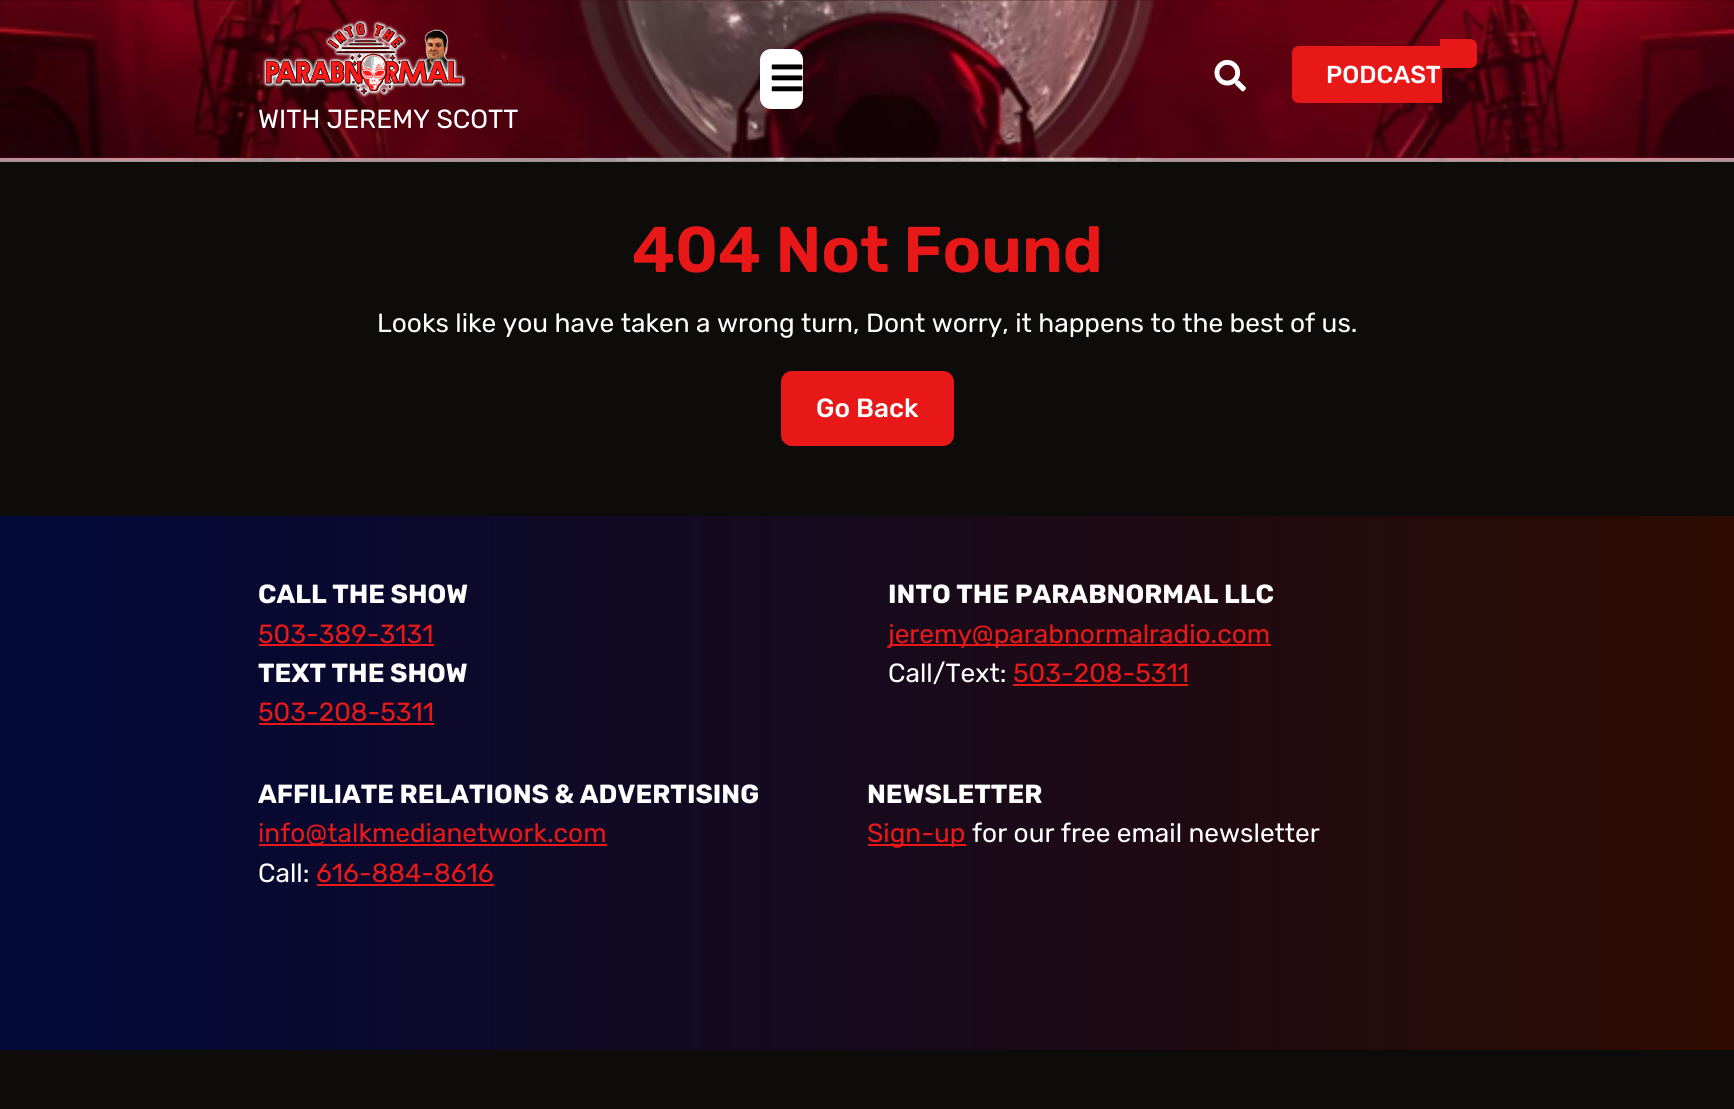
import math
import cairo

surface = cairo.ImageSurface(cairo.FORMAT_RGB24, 1734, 1109)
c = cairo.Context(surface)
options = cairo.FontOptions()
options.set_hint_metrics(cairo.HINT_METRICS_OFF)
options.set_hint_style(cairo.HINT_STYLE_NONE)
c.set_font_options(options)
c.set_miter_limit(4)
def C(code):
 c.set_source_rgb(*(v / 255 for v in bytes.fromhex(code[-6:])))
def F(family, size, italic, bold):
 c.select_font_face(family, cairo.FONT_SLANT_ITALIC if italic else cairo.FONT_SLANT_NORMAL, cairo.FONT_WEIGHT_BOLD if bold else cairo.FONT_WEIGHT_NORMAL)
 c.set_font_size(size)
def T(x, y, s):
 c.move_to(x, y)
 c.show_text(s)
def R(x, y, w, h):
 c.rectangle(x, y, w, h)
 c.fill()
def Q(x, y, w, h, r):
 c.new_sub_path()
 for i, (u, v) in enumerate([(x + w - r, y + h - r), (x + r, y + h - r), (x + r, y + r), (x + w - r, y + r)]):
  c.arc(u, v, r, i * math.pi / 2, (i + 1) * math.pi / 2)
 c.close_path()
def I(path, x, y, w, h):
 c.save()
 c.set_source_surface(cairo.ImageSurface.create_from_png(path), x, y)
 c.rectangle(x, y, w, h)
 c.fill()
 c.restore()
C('0e0b0b')
c.paint()
I('1.png',0,0,1734,161)
c.set_source_rgba(1,1,1,0.57)
R(0,158,1734,4)
C('ffffff')
Q(760,49,43,60,11)
c.fill()
I('2.png',771,64,32,28)
I('3.png',1214,59,32,33)
C('e91818')
c.new_path()
c.move_to(1299,46)
c.line_to(1442,46)
c.line_to(1442,103)
c.line_to(1299,103)
c.curve_to(1295,103,1292,100,1292,96)
c.line_to(1292,53)
c.curve_to(1292,49,1295,46,1299,46)
c.close_path()
c.fill()
c.new_path()
c.move_to(1440,39)
c.line_to(1470,39)
c.curve_to(1474,39,1477,42,1477,46)
c.line_to(1477,61)
c.curve_to(1477,65,1474,68,1470,68)
c.line_to(1440,68)
c.close_path()
c.fill()
F('Rubik Medium',24.5,0,0)
C('ffffff')
T(1326,83,'PODCAST')
I('4.png',262,19,205,79)
F('Rubik',26.25,0,0)
T(258,128,'WITH JEREMY SCOTT')
F('Rubik SemiBold',64.5,0,0)
C('e91818')
T(632,272,'404 Not Found')
F('Rubik',26.25,0,0)
C('ffffff')
T(377,332,'Looks like you have taken a wrong turn, Dont worry, it happens to the best of us.')
C('e91818')
Q(781,371,173,75,11)
c.fill()
F('Rubik Medium',26.25,0,0)
C('ffffff')
T(816,417,'Go Back')
gradient = cairo.LinearGradient(0,783,1734,783)
gradient.add_color_stop_rgba(0,0.004,0.035,0.227,1)
gradient.add_color_stop_rgba(1,0.176,0.043,0,1)
c.set_source(gradient)
R(0,516,1734,534)
F('Rubik',26.25,0,1)
C('ffffff')
T(258,603,'CALL THE SHOW')
F('Rubik',26.25,0,0)
C('e91818')
T(258,643,'503-389-3131')
R(259,644,175,2)
F('Rubik',26.25,0,1)
C('ffffff')
T(258,682,'TEXT THE SHOW')
F('Rubik',26.25,0,0)
C('e91818')
T(258,721,'503-208-5311')
R(259,723,175,2)
F('Rubik',26.25,0,1)
C('ffffff')
T(888,603,'INTO THE PARABNORMAL LLC')
C('e91818')
R(889,644,382,2)
F('Rubik',26.25,0,0)
T(888,643,'jeremy@parabnormalradio.com')
C('ffffff')
T(888,682,'Call/Text:')
C('e91818')
T(1013,682,'503-208-5311')
R(1013,684,175,2)
F('Rubik',26.25,0,1)
C('ffffff')
T(258,803,'AFFILIATE RELATIONS & ADVERTISING')
C('e91818')
R(259,844,348,2)
F('Rubik',26.25,0,0)
T(258,842,'info@talkmedianetwork.com')
C('ffffff')
T(258,882,'Call:')
C('e91818')
T(316,882,'616-884-8616')
R(317,884,177,2)
F('Rubik',26.25,0,1)
C('ffffff')
T(867,803,'NEWSLETTER')
C('e91818')
R(868,844,98,2)
F('Rubik',26.25,0,0)
T(867,842,'Sign-up')
C('ffffff')
T(972,842,'for our free email newsletter')
surface.write_to_png('o.png')
